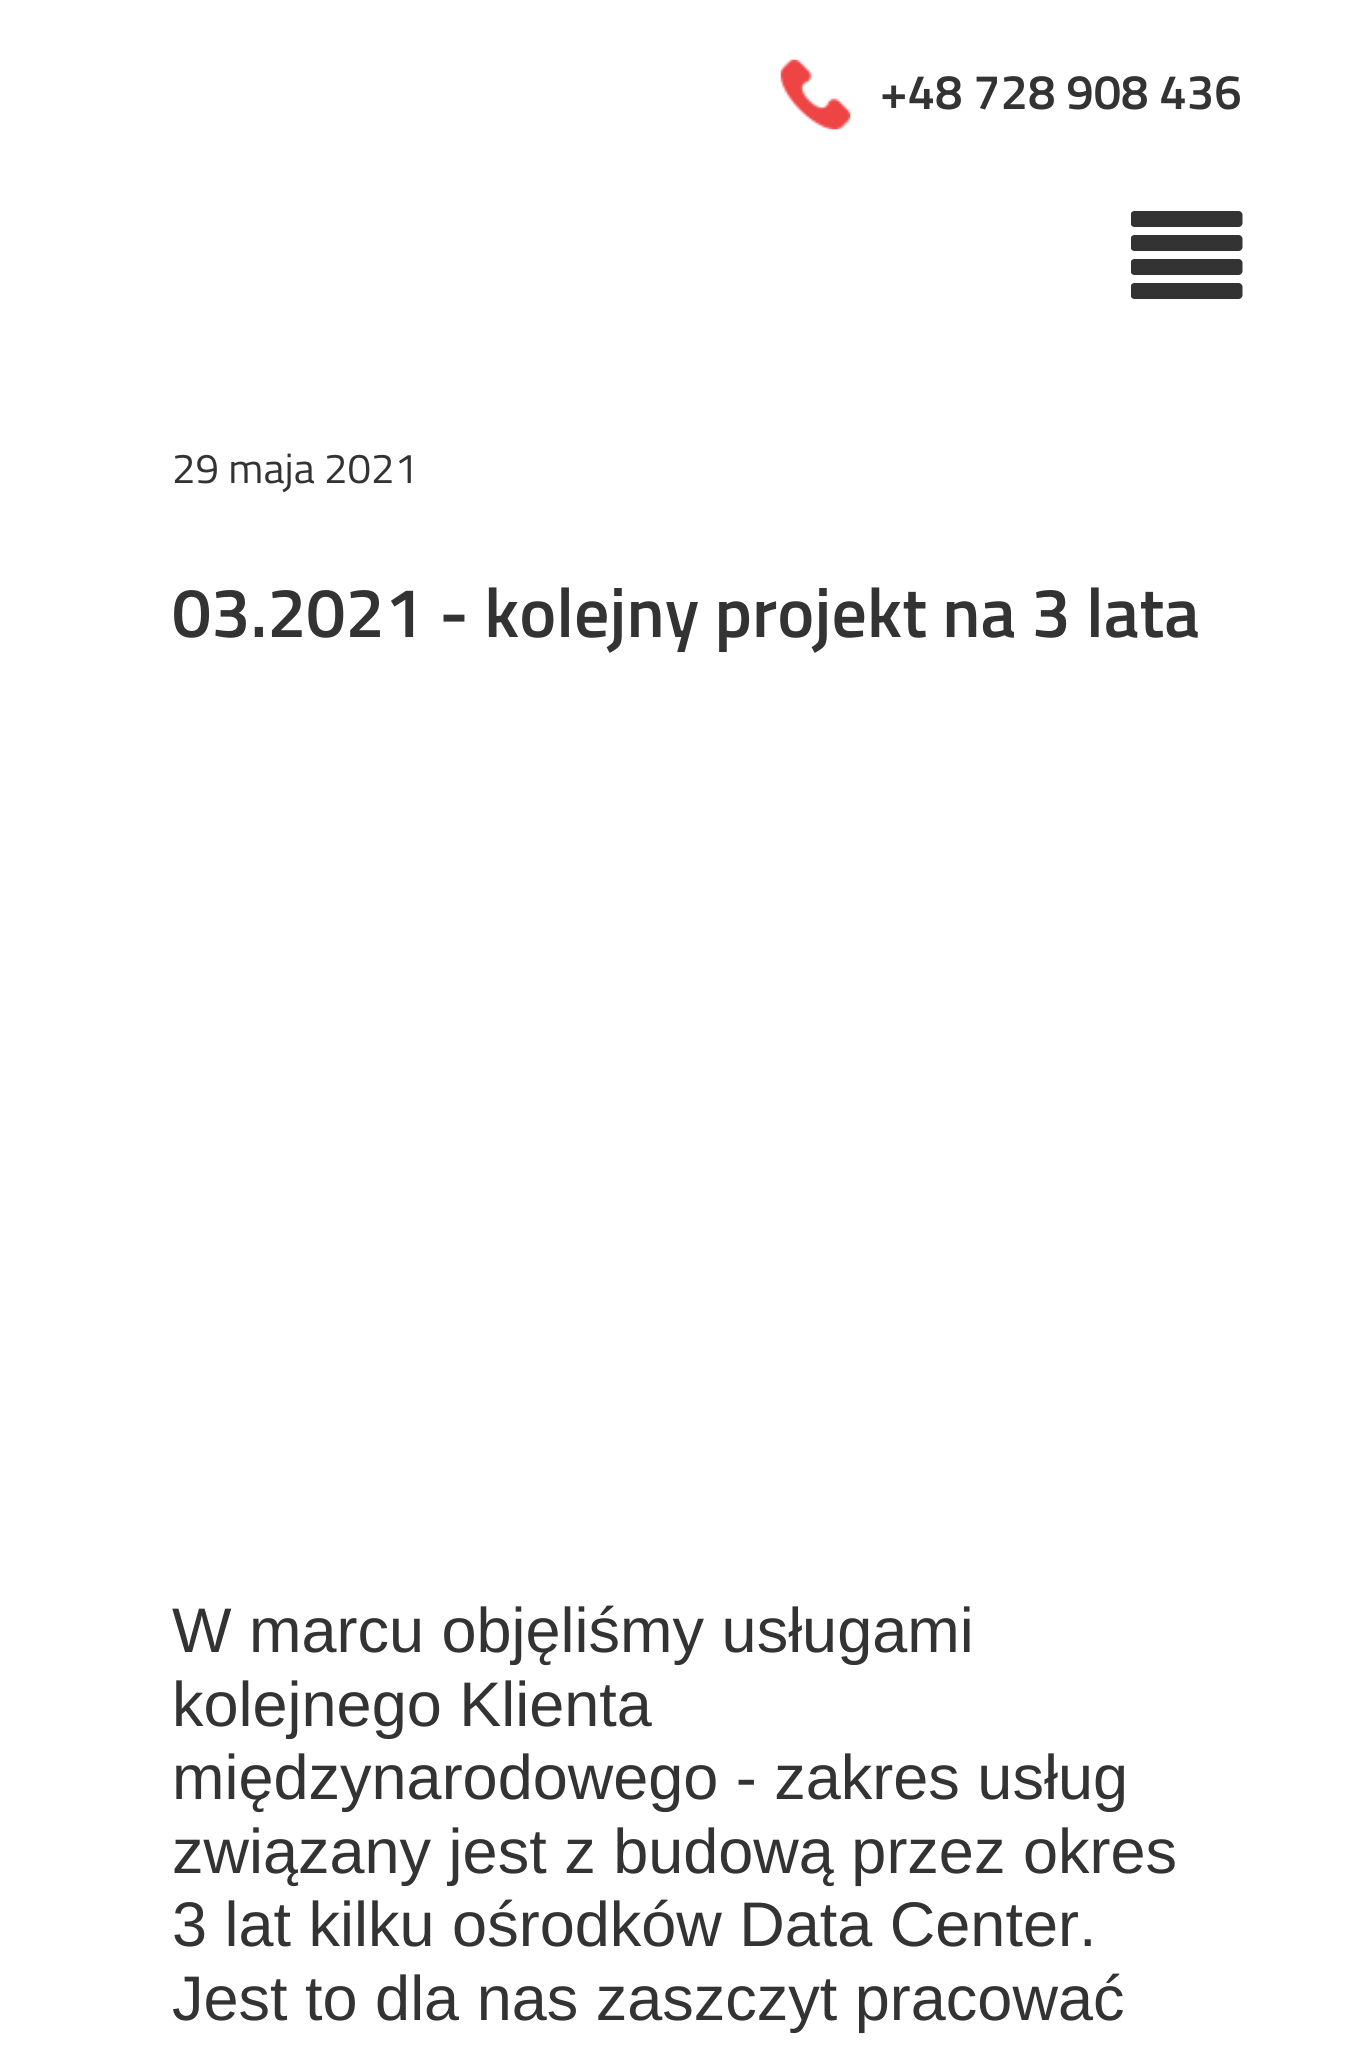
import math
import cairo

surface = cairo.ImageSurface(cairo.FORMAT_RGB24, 1372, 2061)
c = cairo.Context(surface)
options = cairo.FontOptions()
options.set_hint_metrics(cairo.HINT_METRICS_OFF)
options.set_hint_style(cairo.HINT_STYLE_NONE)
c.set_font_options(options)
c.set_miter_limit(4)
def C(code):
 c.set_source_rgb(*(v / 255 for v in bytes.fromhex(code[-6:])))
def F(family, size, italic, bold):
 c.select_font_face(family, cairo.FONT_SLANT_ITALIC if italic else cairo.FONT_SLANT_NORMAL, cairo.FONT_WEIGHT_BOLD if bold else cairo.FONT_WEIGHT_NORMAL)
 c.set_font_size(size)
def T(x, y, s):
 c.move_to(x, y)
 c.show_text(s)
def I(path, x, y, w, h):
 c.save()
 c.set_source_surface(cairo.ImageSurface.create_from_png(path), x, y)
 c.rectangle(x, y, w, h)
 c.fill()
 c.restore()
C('ffffff')
c.paint()
I('1.png',780,59,71,71)
F('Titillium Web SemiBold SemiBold',49,0,0)
C('333333')
T(880,109,'+48 728 908 436')
I('2.png',1131,211,112,88)
F('Titillium Web',42,0,0)
T(172,483,'29 maja 2021')
F('Titillium Web SemiBold SemiBold',70,0,0)
T(172,637,'03.2021 - kolejny projekt na 3 lata')
F('Liberation Sans',63,0,0)
T(172,1652,'W marcu objęliśmy usługami')
T(172,1726,'kolejnego Klienta')
T(172,1799,'międzynarodowego - zakres usług')
T(172,1873,'związany jest z budową przez okres')
T(172,1946,'3 lat kilku ośrodków Data Center.')
T(172,2020,'Jest to dla nas zaszczyt pracować')
surface.write_to_png('o.png')
